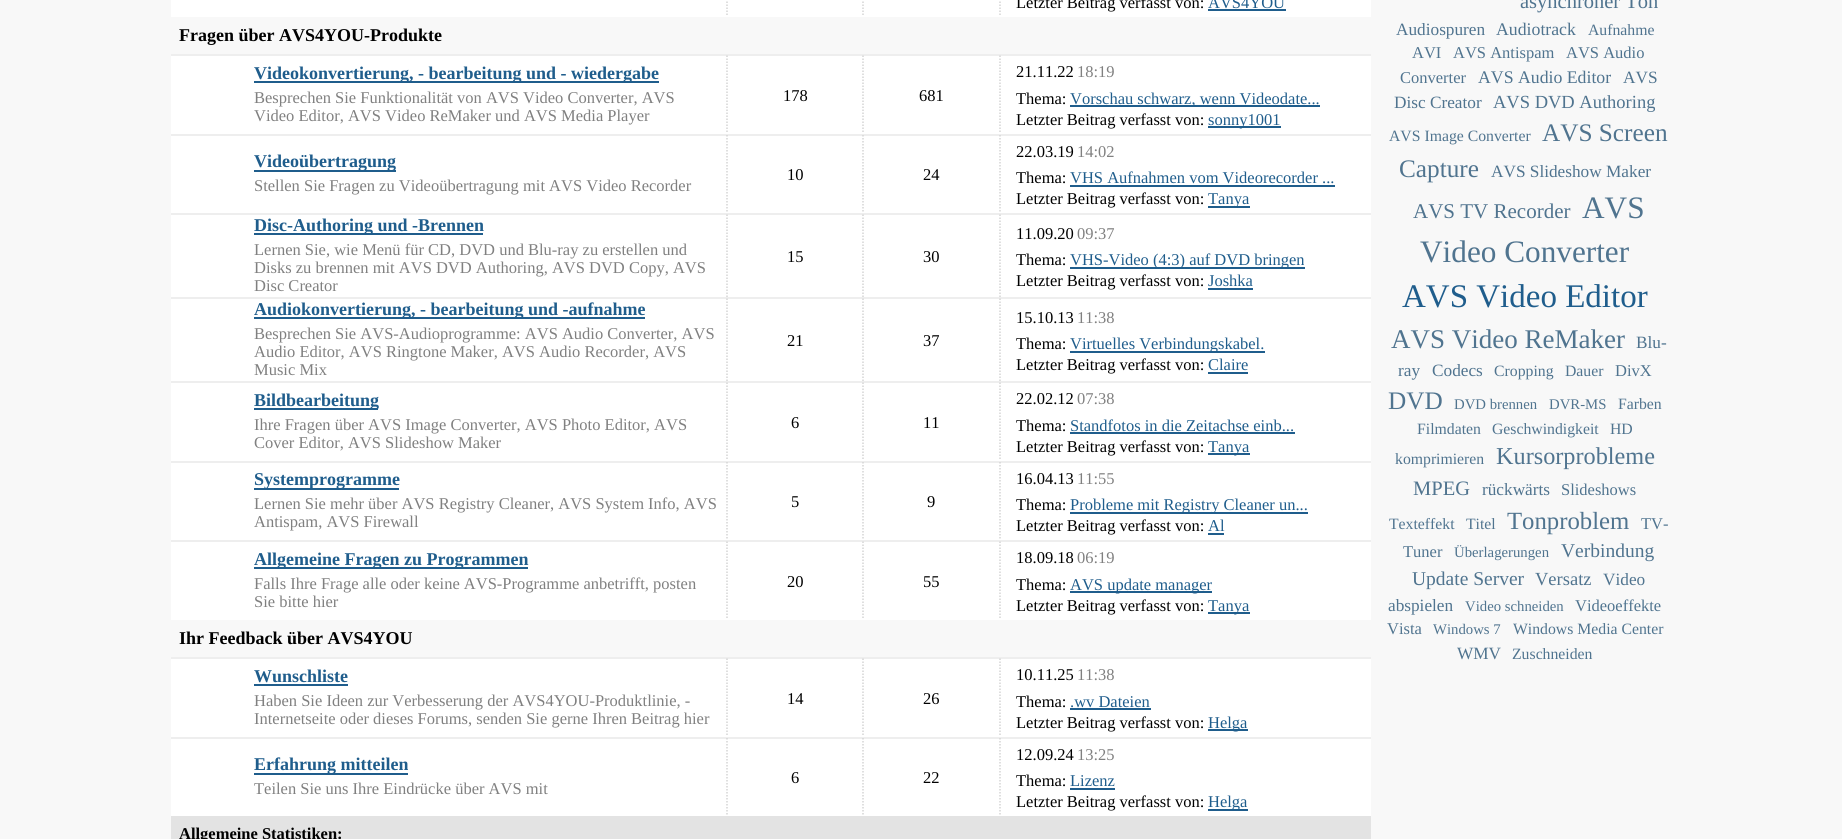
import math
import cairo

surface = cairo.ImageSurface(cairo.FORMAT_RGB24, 1842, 839)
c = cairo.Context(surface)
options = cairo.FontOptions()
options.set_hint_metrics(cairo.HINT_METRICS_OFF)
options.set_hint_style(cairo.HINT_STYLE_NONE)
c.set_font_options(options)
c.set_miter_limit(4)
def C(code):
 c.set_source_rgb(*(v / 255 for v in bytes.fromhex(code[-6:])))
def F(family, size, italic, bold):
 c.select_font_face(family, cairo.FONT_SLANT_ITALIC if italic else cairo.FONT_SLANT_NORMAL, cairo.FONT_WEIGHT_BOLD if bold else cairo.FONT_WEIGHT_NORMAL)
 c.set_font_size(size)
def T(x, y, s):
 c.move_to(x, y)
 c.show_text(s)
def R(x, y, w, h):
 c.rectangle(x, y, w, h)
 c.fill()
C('f8f8f8')
c.paint()
C('ffffff')
R(171,0,1200,17)
c.new_path()
c.move_to(863,-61.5)
c.line_to(863,16.5)
C('d4d4d4')
c.set_line_width(1.5)
c.set_dash([1.5,1.5])
c.stroke()
c.new_path()
c.move_to(727,-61.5)
c.line_to(727,16.5)
c.stroke()
c.new_path()
c.move_to(1000,-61.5)
c.line_to(1000,16.5)
c.stroke()
F('Liberation Serif',16.5,0,0)
C('000000')
T(1016,8,'Letzter Beitrag verfasst von:')
C('1f5d8c')
T(1208,8,'AVS4YOU')
R(1208,9,78,2)
F('Liberation Serif',18,0,1)
C('000000')
T(179,41,'Fragen über AVS4YOU-Produkte')
C('ffffff')
R(171,56,1200,78)
C('eeeeee')
R(171,54,1200,2)
C('1f5d8c')
R(254,81,405,2)
T(254,79,'Videokonvertierung, - bearbeitung und - wiedergabe')
F('Liberation Serif',16.5,0,0)
C('808080')
T(254,103,'Besprechen Sie Funktionalität von AVS Video Converter, AVS')
T(254,121,'Video Editor, AVS Video ReMaker und AVS Media Player')
c.new_path()
c.move_to(863,55.5)
c.line_to(863,133.5)
C('d4d4d4')
c.stroke()
c.new_path()
c.move_to(727,55.5)
c.line_to(727,133.5)
c.stroke()
C('000000')
T(783,101,'178')
c.new_path()
c.move_to(1000,55.5)
c.line_to(1000,133.5)
C('d4d4d4')
c.stroke()
C('000000')
T(919,101,'681')
T(1016,77,'21.11.22')
C('808080')
T(1077,77,'18:19')
C('000000')
T(1016,104,'Thema:')
C('1f5d8c')
R(1070,105,250,2)
T(1070,104,'Vorschau schwarz, wenn Videodate...')
C('000000')
T(1016,125,'Letzter Beitrag verfasst von:')
C('1f5d8c')
R(1208,126,73,2)
T(1208,125,'sonny1001')
C('ffffff')
R(171,136,1200,77)
C('eeeeee')
R(171,134,1200,2)
C('1f5d8c')
R(254,170,142,2)
F('Liberation Serif',18,0,1)
T(254,167,'Videoübertragung')
F('Liberation Serif',16.5,0,0)
C('808080')
T(254,191,'Stellen Sie Fragen zu Videoübertragung mit AVS Video Recorder')
c.new_path()
c.move_to(863,135)
c.line_to(863,213)
C('d4d4d4')
c.stroke()
c.new_path()
c.move_to(727,135)
c.line_to(727,213)
c.stroke()
C('000000')
T(787,180,'10')
c.new_path()
c.move_to(1000,135)
c.line_to(1000,213)
C('d4d4d4')
c.stroke()
C('000000')
T(923,180,'24')
T(1016,157,'22.03.19')
C('808080')
T(1077,157,'14:02')
C('000000')
T(1016,183,'Thema:')
C('1f5d8c')
T(1070,183,'VHS Aufnahmen vom Videorecorder ...')
R(1070,185,265,2)
C('000000')
T(1016,204,'Letzter Beitrag verfasst von:')
C('1f5d8c')
R(1208,206,42,2)
T(1208,204,'Tanya')
C('ffffff')
R(171,215,1200,82)
C('eeeeee')
R(171,213,1200,2)
C('1f5d8c')
R(254,233,229,2)
F('Liberation Serif',18,0,1)
T(254,231,'Disc-Authoring und -Brennen')
F('Liberation Serif',16.5,0,0)
C('808080')
T(254,255,'Lernen Sie, wie Menü für CD, DVD und Blu-ray zu erstellen und')
T(254,273,'Disks zu brennen mit AVS DVD Authoring, AVS DVD Copy, AVS')
T(254,291,'Disc Creator')
c.new_path()
c.move_to(863,214.5)
c.line_to(863,297)
C('d4d4d4')
c.stroke()
c.new_path()
c.move_to(727,214.5)
c.line_to(727,297)
c.stroke()
C('000000')
T(787,262,'15')
c.new_path()
c.move_to(1000,214.5)
c.line_to(1000,297)
C('d4d4d4')
c.stroke()
C('000000')
T(923,262,'30')
T(1016,239,'11.09.20')
C('808080')
T(1077,239,'09:37')
C('000000')
T(1016,265,'Thema:')
C('1f5d8c')
R(1070,267,235,2)
T(1070,265,'VHS-Video (4:3) auf DVD bringen')
C('000000')
T(1016,286,'Letzter Beitrag verfasst von:')
C('1f5d8c')
T(1208,286,'Joshka')
R(1208,288,45,2)
C('ffffff')
R(171,299,1200,82)
C('eeeeee')
R(171,297,1200,2)
C('1f5d8c')
R(254,317,391,2)
F('Liberation Serif',18,0,1)
T(254,315,'Audiokonvertierung, - bearbeitung und -aufnahme')
F('Liberation Serif',16.5,0,0)
C('808080')
T(254,339,'Besprechen Sie AVS-Audioprogramme: AVS Audio Converter, AVS')
T(254,357,'Audio Editor, AVS Ringtone Maker, AVS Audio Recorder, AVS')
T(254,375,'Music Mix')
c.new_path()
c.move_to(863,298.5)
c.line_to(863,381)
C('d4d4d4')
c.stroke()
c.new_path()
c.move_to(727,298.5)
c.line_to(727,381)
c.stroke()
C('000000')
T(787,346,'21')
c.new_path()
c.move_to(1000,298.5)
c.line_to(1000,381)
C('d4d4d4')
c.stroke()
C('000000')
T(923,346,'37')
T(1016,323,'15.10.13')
C('808080')
T(1077,323,'11:38')
C('000000')
T(1016,349,'Thema:')
C('1f5d8c')
R(1070,351,195,2)
T(1070,349,'Virtuelles Verbindungskabel.')
C('000000')
T(1016,370,'Letzter Beitrag verfasst von:')
C('1f5d8c')
T(1208,370,'Claire')
R(1208,372,40,2)
C('ffffff')
R(171,383,1200,78)
C('eeeeee')
R(171,381,1200,2)
C('1f5d8c')
R(254,408,124,2)
F('Liberation Serif',18,0,1)
T(254,406,'Bildbearbeitung')
F('Liberation Serif',16.5,0,0)
C('808080')
T(254,430,'Ihre Fragen über AVS Image Converter, AVS Photo Editor, AVS')
T(254,448,'Cover Editor, AVS Slideshow Maker')
c.new_path()
c.move_to(863,382.5)
c.line_to(863,460.5)
C('d4d4d4')
c.stroke()
c.new_path()
c.move_to(727,382.5)
c.line_to(727,460.5)
c.stroke()
C('000000')
T(791,428,'6')
c.new_path()
c.move_to(1000,382.5)
c.line_to(1000,460.5)
C('d4d4d4')
c.stroke()
C('000000')
T(923,428,'11')
T(1016,404,'22.02.12')
C('808080')
T(1077,404,'07:38')
C('000000')
T(1016,431,'Thema:')
C('1f5d8c')
T(1070,431,'Standfotos in die Zeitachse einb...')
R(1070,432,225,2)
C('000000')
T(1016,452,'Letzter Beitrag verfasst von:')
C('1f5d8c')
R(1208,453,42,2)
T(1208,452,'Tanya')
C('ffffff')
R(171,463,1200,77)
C('eeeeee')
R(171,461,1200,2)
C('1f5d8c')
R(254,488,145,2)
F('Liberation Serif',18,0,1)
T(254,485,'Systemprogramme')
F('Liberation Serif',16.5,0,0)
C('808080')
T(254,509,'Lernen Sie mehr über AVS Registry Cleaner, AVS System Info, AVS')
T(254,527,'Antispam, AVS Firewall')
c.new_path()
c.move_to(863,462)
c.line_to(863,540)
C('d4d4d4')
c.stroke()
c.new_path()
c.move_to(727,462)
c.line_to(727,540)
c.stroke()
C('000000')
T(791,507,'5')
c.new_path()
c.move_to(1000,462)
c.line_to(1000,540)
C('d4d4d4')
c.stroke()
C('000000')
T(927,507,'9')
T(1016,484,'16.04.13')
C('808080')
T(1077,484,'11:55')
C('000000')
T(1016,510,'Thema:')
C('1f5d8c')
R(1070,512,238,2)
T(1070,510,'Probleme mit Registry Cleaner un...')
C('000000')
T(1016,531,'Letzter Beitrag verfasst von:')
C('1f5d8c')
T(1208,531,'Al')
R(1208,533,16,2)
C('ffffff')
R(171,542,1200,78)
C('eeeeee')
R(171,540,1200,2)
C('1f5d8c')
R(254,567,274,2)
F('Liberation Serif',18,0,1)
T(254,565,'Allgemeine Fragen zu Programmen')
F('Liberation Serif',16.5,0,0)
C('808080')
T(254,589,'Falls Ihre Frage alle oder keine AVS-Programme anbetrifft, posten')
T(254,607,'Sie bitte hier')
c.new_path()
c.move_to(863,541.5)
c.line_to(863,619.5)
C('d4d4d4')
c.stroke()
c.new_path()
c.move_to(727,541.5)
c.line_to(727,619.5)
c.stroke()
C('000000')
T(787,587,'20')
c.new_path()
c.move_to(1000,541.5)
c.line_to(1000,619.5)
C('d4d4d4')
c.stroke()
C('000000')
T(923,587,'55')
T(1016,563,'18.09.18')
C('808080')
T(1077,563,'06:19')
C('000000')
T(1016,590,'Thema:')
C('1f5d8c')
R(1070,591,142,2)
T(1070,590,'AVS update manager')
C('000000')
T(1016,611,'Letzter Beitrag verfasst von:')
C('1f5d8c')
R(1208,612,42,2)
T(1208,611,'Tanya')
F('Liberation Serif',18,0,1)
C('000000')
T(179,644,'Ihr Feedback über AVS4YOU')
C('ffffff')
R(171,659,1200,78)
C('eeeeee')
R(171,657,1200,2)
C('1f5d8c')
T(254,682,'Wunschliste')
R(254,684,94,2)
F('Liberation Serif',16.5,0,0)
C('808080')
T(254,706,'Haben Sie Ideen zur Verbesserung der AVS4YOU-Produktlinie, -')
T(254,724,'Internetseite oder dieses Forums, senden Sie gerne Ihren Beitrag hier')
c.new_path()
c.move_to(863,658.5)
c.line_to(863,736.5)
C('d4d4d4')
c.stroke()
c.new_path()
c.move_to(727,658.5)
c.line_to(727,736.5)
c.stroke()
C('000000')
T(787,704,'14')
c.new_path()
c.move_to(1000,658.5)
c.line_to(1000,736.5)
C('d4d4d4')
c.stroke()
C('000000')
T(923,704,'26')
T(1016,680,'10.11.25')
C('808080')
T(1077,680,'11:38')
C('000000')
T(1016,707,'Thema:')
C('1f5d8c')
T(1070,707,'.wv Dateien')
R(1070,708,81,2)
C('000000')
T(1016,728,'Letzter Beitrag verfasst von:')
C('1f5d8c')
R(1208,729,40,2)
T(1208,728,'Helga')
C('ffffff')
R(171,739,1200,77)
C('eeeeee')
R(171,737,1200,2)
C('1f5d8c')
R(254,773,154,2)
F('Liberation Serif',18,0,1)
T(254,770,'Erfahrung mitteilen')
F('Liberation Serif',16.5,0,0)
C('808080')
T(254,794,'Teilen Sie uns Ihre Eindrücke über AVS mit')
c.new_path()
c.move_to(863,738)
c.line_to(863,816)
C('d4d4d4')
c.stroke()
c.new_path()
c.move_to(727,738)
c.line_to(727,816)
c.stroke()
C('000000')
T(791,783,'6')
c.new_path()
c.move_to(1000,738)
c.line_to(1000,816)
C('d4d4d4')
c.stroke()
C('000000')
T(923,783,'22')
T(1016,760,'12.09.24')
C('808080')
T(1077,760,'13:25')
C('000000')
T(1016,786,'Thema:')
C('1f5d8c')
T(1070,786,'Lizenz')
R(1070,788,45,2)
C('000000')
T(1016,807,'Letzter Beitrag verfasst von:')
C('1f5d8c')
R(1208,809,40,2)
T(1208,807,'Helga')
C('e3e3e3')
R(171,816,1200,23)
F('Liberation Serif',16.5,0,1)
C('000000')
T(179,839,'Allgemeine Statistiken:')
F('Liberation Serif',20.5,0,0)
C('50748f')
T(1520,8,'asynchroner Ton')
F('Liberation Serif',17.25,0,0)
T(1396,35,'Audiospuren')
F('Liberation Serif',17.75,0,0)
T(1496,35,'Audiotrack')
F('Liberation Serif',15.75,0,0)
T(1588,35,'Aufnahme')
F('Liberation Serif',16.5,0,0)
T(1412,58,'AVI')
T(1453,58,'AVS Antispam')
T(1566,58,'AVS Audio')
T(1400,83,'Converter')
F('Liberation Serif',17.75,0,0)
T(1478,83,'AVS Audio Editor')
F('Liberation Serif',17.25,0,0)
T(1623,83,'AVS')
T(1394,108,'Disc Creator')
F('Liberation Serif',18.5,0,0)
T(1493,108,'AVS DVD Authoring')
F('Liberation Serif',15.75,0,0)
T(1389,141,'AVS Image Converter')
F('Liberation Serif',25.25,0,0)
T(1542,141,'AVS Screen')
T(1399,177,'Capture')
F('Liberation Serif',17.25,0,0)
T(1491,177,'AVS Slideshow Maker')
F('Liberation Serif',21,0,0)
T(1413,218,'AVS TV Recorder')
F('Liberation Serif',31.25,0,0)
T(1582,218,'AVS')
T(1420,262,'Video Converter')
F('Liberation Serif',33,0,0)
C('1f5d8c')
T(1402,307,'AVS Video Editor')
F('Liberation Serif',27,0,0)
C('50748f')
T(1391,348,'AVS Video ReMaker')
F('Liberation Serif',17.25,0,0)
T(1636,348,'Blu-')
T(1398,376,'ray')
T(1432,376,'Codecs')
F('Liberation Serif',15.75,0,0)
T(1494,376,'Cropping')
T(1565,376,'Dauer')
F('Liberation Serif',16.5,0,0)
T(1615,376,'DivX')
F('Liberation Serif',25.25,0,0)
T(1388,409,'DVD')
F('Liberation Serif',14.75,0,0)
T(1454,409,'DVD brennen')
T(1549,409,'DVR-MS')
F('Liberation Serif',15.75,0,0)
T(1618,409,'Farben')
T(1417,434,'Filmdaten')
T(1492,434,'Geschwindigkeit')
T(1610,434,'HD')
T(1395,464,'komprimieren')
F('Liberation Serif',24.25,0,0)
T(1496,464,'Kursorprobleme')
F('Liberation Serif',20.5,0,0)
T(1413,495,'MPEG')
F('Liberation Serif',17.25,0,0)
T(1482,495,'rückwärts')
F('Liberation Serif',16.5,0,0)
T(1561,495,'Slideshows')
F('Liberation Serif',15.75,0,0)
T(1389,529,'Texteffekt')
T(1466,529,'Titel')
F('Liberation Serif',24.75,0,0)
T(1507,529,'Tonproblem')
F('Liberation Serif',16.5,0,0)
T(1641,529,'TV-')
T(1403,557,'Tuner')
F('Liberation Serif',14.75,0,0)
T(1454,557,'Überlagerungen')
F('Liberation Serif',19.5,0,0)
T(1561,557,'Verbindung')
T(1412,585,'Update Server')
F('Liberation Serif',18.5,0,0)
T(1535,585,'Versatz')
F('Liberation Serif',17.25,0,0)
T(1603,585,'Video')
T(1388,611,'abspielen')
F('Liberation Serif',14.75,0,0)
T(1465,611,'Video schneiden')
F('Liberation Serif',16.5,0,0)
T(1575,611,'Videoeffekte')
T(1387,634,'Vista')
F('Liberation Serif',14.75,0,0)
T(1433,634,'Windows 7')
F('Liberation Serif',15.75,0,0)
T(1513,634,'Windows Media Center')
F('Liberation Serif',17.25,0,0)
T(1457,659,'WMV')
F('Liberation Serif',15.75,0,0)
T(1512,659,'Zuschneiden')
surface.write_to_png('o.png')
